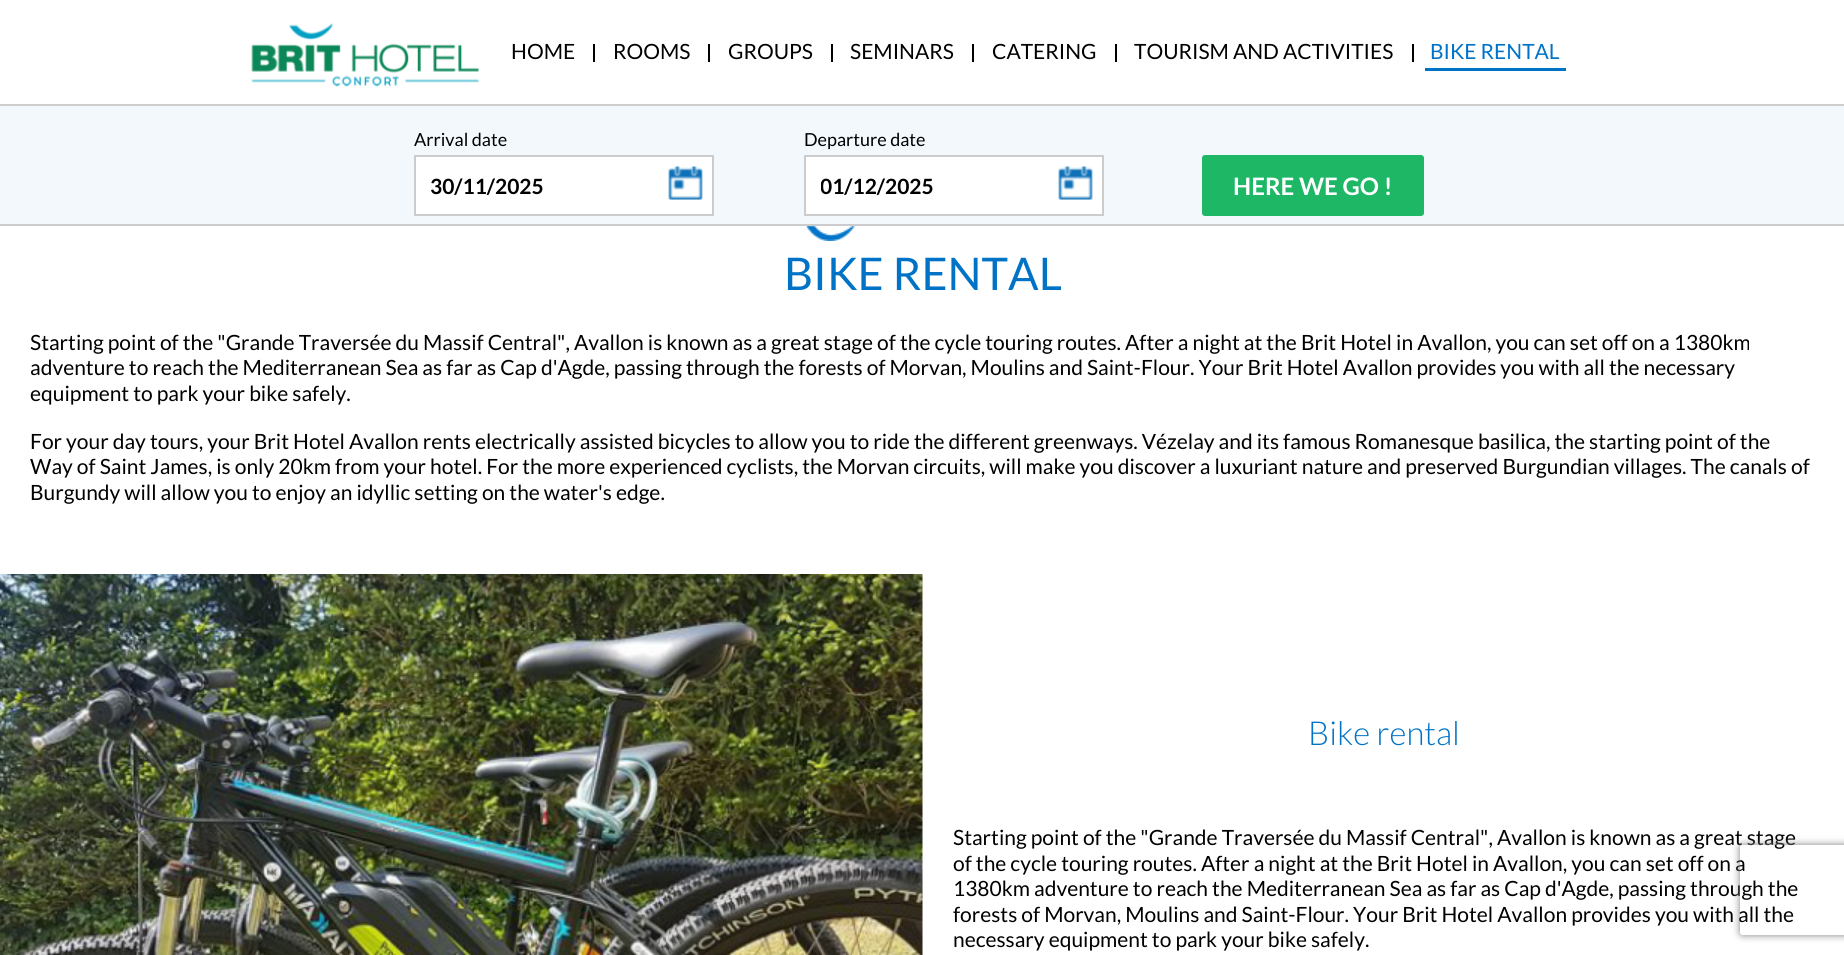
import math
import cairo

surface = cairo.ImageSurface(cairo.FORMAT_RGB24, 1844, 955)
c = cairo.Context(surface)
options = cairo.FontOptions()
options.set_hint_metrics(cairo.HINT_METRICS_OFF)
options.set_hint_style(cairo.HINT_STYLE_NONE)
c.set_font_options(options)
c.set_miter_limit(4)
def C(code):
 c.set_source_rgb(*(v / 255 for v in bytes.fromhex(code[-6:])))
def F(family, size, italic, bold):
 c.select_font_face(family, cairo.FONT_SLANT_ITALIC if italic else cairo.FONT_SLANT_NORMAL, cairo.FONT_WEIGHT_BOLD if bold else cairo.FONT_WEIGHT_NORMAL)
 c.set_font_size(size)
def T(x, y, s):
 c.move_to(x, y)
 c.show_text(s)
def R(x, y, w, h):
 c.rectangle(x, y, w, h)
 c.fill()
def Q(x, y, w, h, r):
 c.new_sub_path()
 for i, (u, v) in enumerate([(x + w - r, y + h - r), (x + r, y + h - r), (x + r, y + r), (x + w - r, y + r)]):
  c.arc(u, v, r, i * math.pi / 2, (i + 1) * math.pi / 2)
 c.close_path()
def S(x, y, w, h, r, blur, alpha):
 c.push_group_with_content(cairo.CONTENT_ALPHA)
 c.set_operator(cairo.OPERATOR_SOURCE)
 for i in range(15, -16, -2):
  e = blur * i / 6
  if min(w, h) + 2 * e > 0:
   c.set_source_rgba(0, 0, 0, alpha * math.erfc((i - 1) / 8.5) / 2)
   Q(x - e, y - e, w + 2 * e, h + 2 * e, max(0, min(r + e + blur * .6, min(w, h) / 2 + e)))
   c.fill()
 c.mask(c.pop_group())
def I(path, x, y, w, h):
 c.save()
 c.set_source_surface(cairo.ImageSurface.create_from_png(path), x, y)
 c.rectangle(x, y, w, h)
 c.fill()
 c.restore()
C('ffffff')
c.paint()
C('cccccc')
R(0,104,1844,2)
I('1.png',251,23,228,64)
F('Lato',21,0,0)
C('000000')
T(511,59,'HOME')
R(593,44,2,18)
T(613,59,'ROOMS')
R(708,44,2,18)
T(728,59,'GROUPS')
R(831,44,2,18)
T(850,59,'SEMINARS')
R(972,44,2,18)
T(992,59,'CATERING')
R(1115,44,2,18)
T(1134,59,'TOURISM AND ACTIVITIES')
R(1412,44,2,18)
C('0073c7')
R(1425,68,141,3)
T(1430,59,'BIKE RENTAL')
C('f2f8fc')
R(0,106,1844,118)
C('cccccc')
R(0,224,1844,2)
F('Lato',18,0,0)
C('000000')
T(414,146,'Arrival date')
C('ffffff')
c.rectangle(415,156,298,59)
c.fill_preserve()
C('cccccc')
c.stroke()
F('Lato',21,0,1)
C('000000')
T(430,194,'30/11/2025')
I('2.png',668,166,35,34)
F('Lato',18,0,0)
T(804,146,'Departure date')
C('ffffff')
c.rectangle(805,156,298,59)
c.fill_preserve()
C('cccccc')
c.stroke()
c.save()
c.rectangle(821,173,267,25)
c.clip()
F('Lato',21,0,1)
C('000000')
T(820,194,'01/12/2025')
c.restore()
I('3.png',1058,166,35,34)
C('1db765')
Q(1203,156,220,59,2)
c.fill_preserve()
c.stroke()
F('Lato',24,0,1)
C('ffffff')
T(1233,195,'HERE WE GO !')
I('4.png',805,226,50,15)
F('Lato',45,0,0)
C('0073c7')
T(784,290,'BIKE RENTAL')
F('Lato',21,0,0)
C('000000')
T(30,350,'Starting point of the "Grande Traversée du Massif Central", Avallon is known as a great stage of the cycle touring routes. After a night at the Brit Hotel in Avallon, you can set off on a 1380km')
T(30,375,'adventure to reach the Mediterranean Sea as far as Cap d\'Agde, passing through the forests of Morvan, Moulins and Saint-Flour. Your Brit Hotel Avallon provides you with all the necessary')
T(30,401,'equipment to park your bike safely.')
T(30,449,'For your day tours, your Brit Hotel Avallon rents electrically assisted bicycles to allow you to ride the different greenways. Vézelay and its famous Romanesque basilica, the starting point of the')
T(30,474,'Way of Saint James, is only 20km from your hotel. For the more experienced cyclists, the Morvan circuits, will make you discover a luxuriant nature and preserved Burgundian villages. The canals of')
T(30,500,'Burgundy will allow you to enjoy an idyllic setting on the water\'s edge.')
I('5.png',0,574,923,381)
F('Lato Light',33,0,0)
C('0073c7')
T(1308,745,'Bike rental')
F('Lato',21,0,0)
C('000000')
T(953,845,'Starting point of the "Grande Traversée du Massif Central", Avallon is known as a great stage')
T(953,871,'of the cycle touring routes. After a night at the Brit Hotel in Avallon, you can set off on a')
T(953,896,'1380km adventure to reach the Mediterranean Sea as far as Cap d\'Agde, passing through the')
T(953,922,'forests of Morvan, Moulins and Saint-Flour. Your Brit Hotel Avallon provides you with all the')
T(953,947,'necessary equipment to park your bike safely.')
c.save()
c.set_fill_rule(cairo.FILL_RULE_EVEN_ODD)
c.new_path()
c.move_to(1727,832)
c.line_to(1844,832)
c.line_to(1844,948)
c.line_to(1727,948)
c.close_path()
c.move_to(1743,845)
c.line_to(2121,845)
c.curve_to(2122.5,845,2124,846.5,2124,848)
c.line_to(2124,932)
c.curve_to(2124,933.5,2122.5,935,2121,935)
c.line_to(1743,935)
c.curve_to(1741.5,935,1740,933.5,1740,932)
c.line_to(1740,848)
c.curve_to(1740,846.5,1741.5,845,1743,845)
c.close_path()
c.clip()
C('808080')
S(1740,845,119,90,3,4,1)
c.restore()
surface.write_to_png('o.png')
